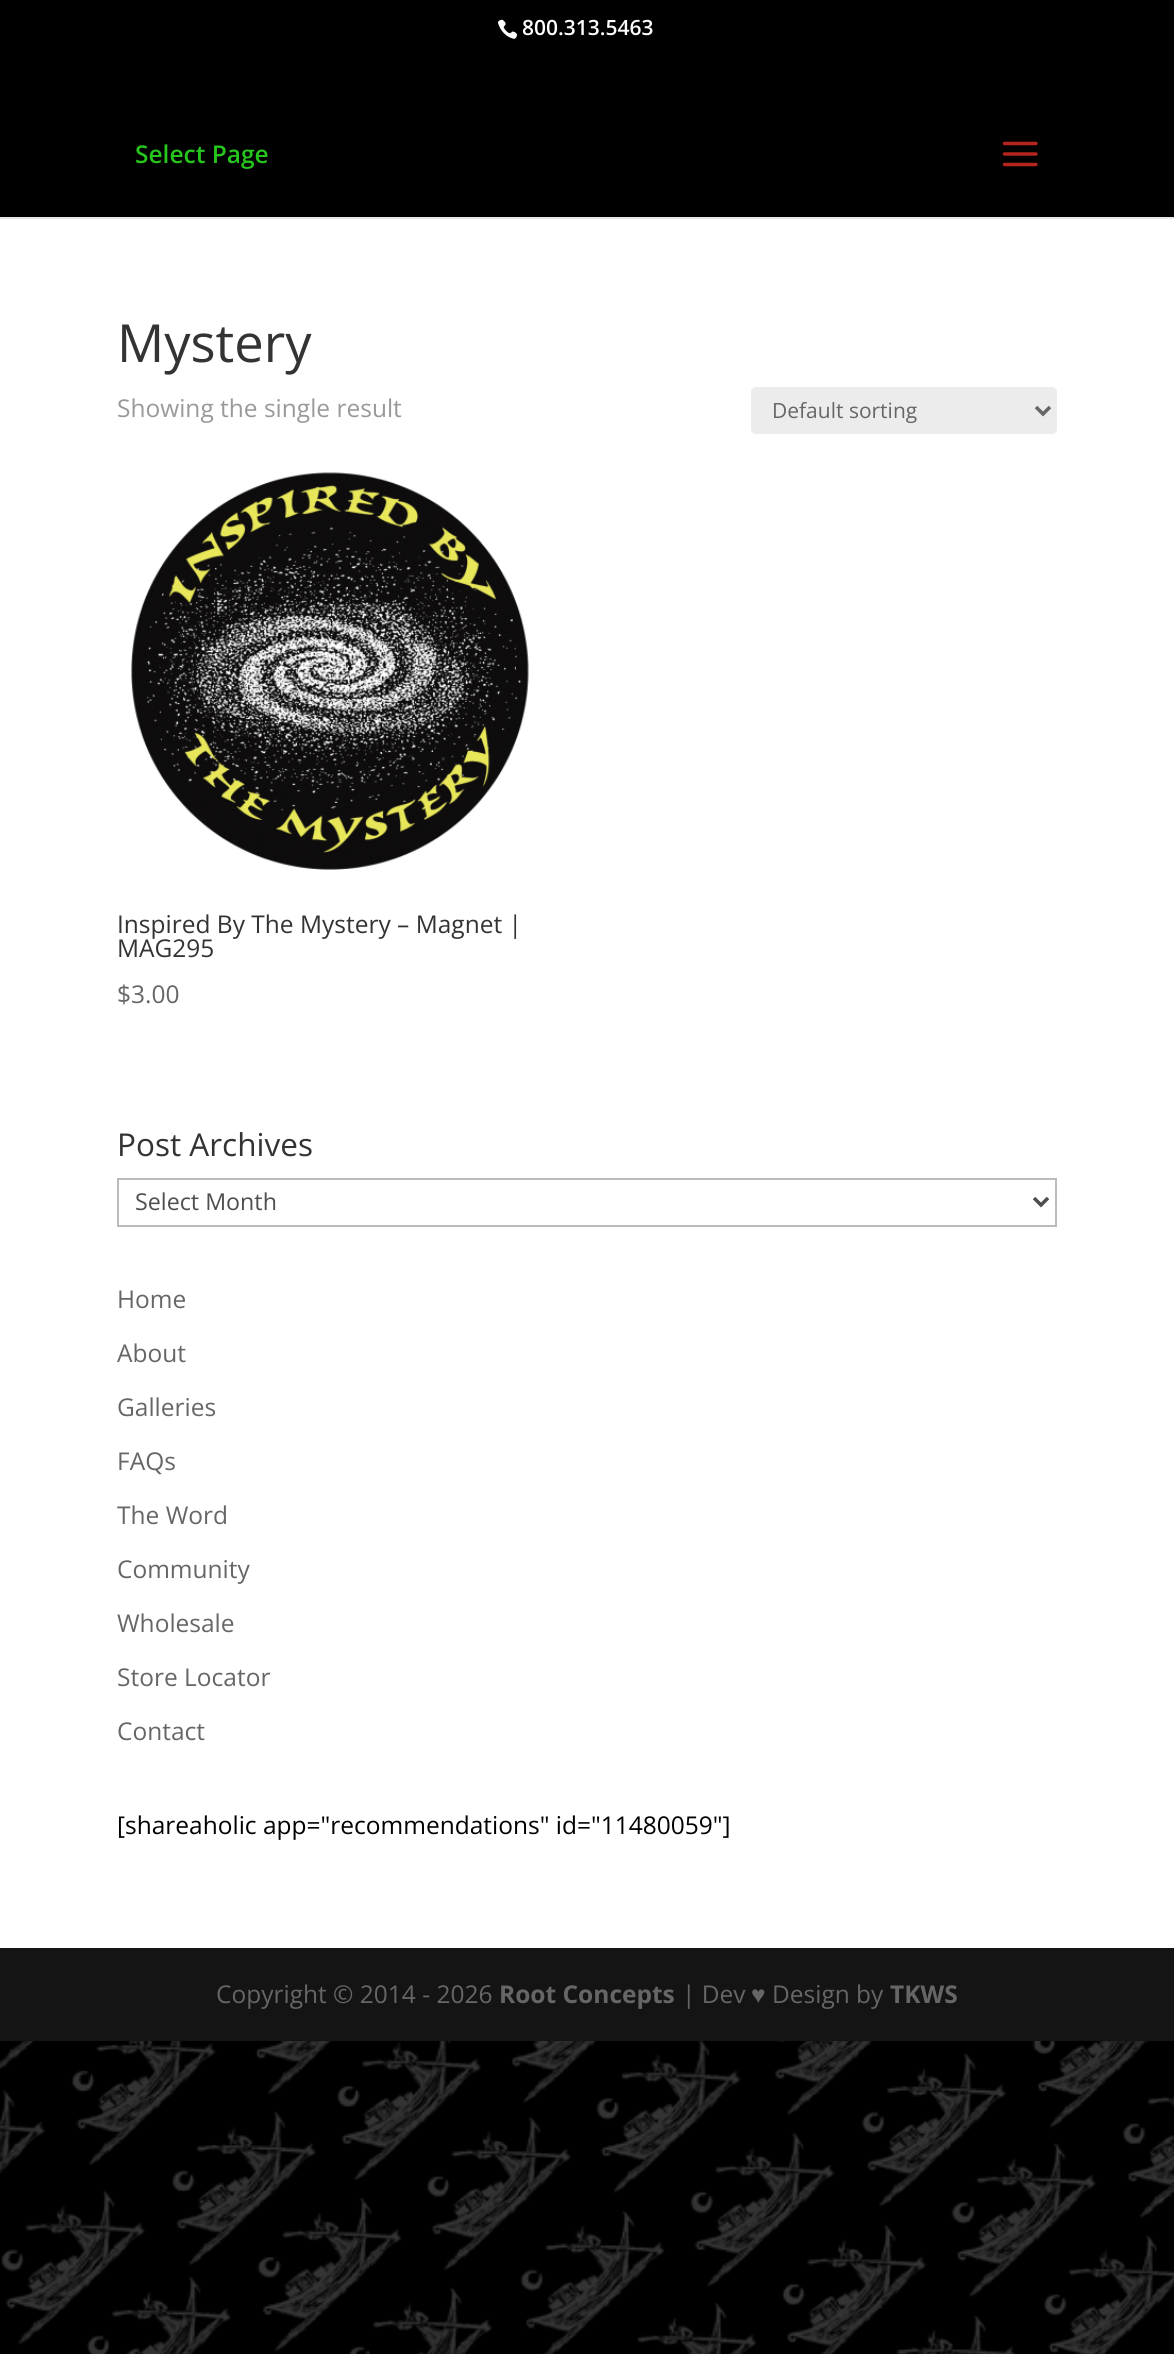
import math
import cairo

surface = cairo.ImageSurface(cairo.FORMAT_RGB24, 1174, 2354)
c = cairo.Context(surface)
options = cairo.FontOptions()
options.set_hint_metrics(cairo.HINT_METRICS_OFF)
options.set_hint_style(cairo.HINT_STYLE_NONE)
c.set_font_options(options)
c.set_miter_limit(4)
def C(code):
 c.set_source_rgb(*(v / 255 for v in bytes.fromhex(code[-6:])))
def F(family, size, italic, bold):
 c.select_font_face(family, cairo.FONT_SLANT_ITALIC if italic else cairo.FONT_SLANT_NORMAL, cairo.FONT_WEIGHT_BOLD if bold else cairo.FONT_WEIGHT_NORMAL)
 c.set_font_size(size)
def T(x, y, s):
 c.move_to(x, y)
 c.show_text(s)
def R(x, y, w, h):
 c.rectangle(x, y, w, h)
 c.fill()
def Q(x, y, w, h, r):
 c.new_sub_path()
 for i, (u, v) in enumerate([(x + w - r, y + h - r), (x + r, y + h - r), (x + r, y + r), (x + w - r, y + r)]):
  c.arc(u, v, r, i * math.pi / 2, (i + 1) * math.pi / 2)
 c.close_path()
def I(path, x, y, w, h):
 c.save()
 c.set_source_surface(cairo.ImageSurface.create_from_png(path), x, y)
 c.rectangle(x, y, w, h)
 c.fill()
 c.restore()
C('ffffff')
c.paint()
I('1.png',0,2041,1174,313)
C('000000')
R(0,0,1174,217)
I('2.png',497,19,21,20)
F('Open Sans SemiBold',21,0,0)
C('ffffff')
T(522,35,'800.313.5463')
C('e6e6e6')
R(0,217,1174,2)
F('Open Sans SemiBold',24.5,0,0)
C('26c61d')
T(135,163,'Select Page')
I('3.png',1002,141,36,26)
F('Open Sans',52.5,0,0)
C('333333')
T(117,362,'Mystery')
F('Open Sans',24.5,0,0)
C('999999')
T(117,417,'Showing the single result')
C('ececec')
Q(751,387,306,47,5)
c.fill()
c.new_path()
c.move_to(1036,407)
c.line_to(1043,414)
c.line_to(1050,407)
C('666666')
c.set_line_width(3.5)
c.stroke()
F('Open Sans',21,0,0)
T(772,418,'Default sorting')
I('4.png',131,472,398,398)
F('Open Sans',24.5,0,0)
C('333333')
T(117,933,'Inspired By The Mystery – Magnet |')
T(117,957,'MAG295')
C('666666')
T(117,1003,'$3.00')
F('Open Sans',31.5,0,0)
C('333333')
T(117,1156,'Post Archives')
c.rectangle(118,1179,938,47)
C('bbbbbb')
c.set_line_width(2)
c.stroke()
c.new_path()
c.move_to(1034,1198)
c.line_to(1041,1205)
c.line_to(1048,1198)
C('4e4e4e')
c.set_line_width(3.5)
c.stroke()
F('Open Sans',23.25,0,0)
T(135,1210,'Select Month')
F('Open Sans',24.5,0,0)
C('666666')
T(117,1308,'Home')
T(117,1362,'About')
T(117,1416,'Galleries')
T(117,1470,'FAQs')
T(117,1524,'The Word')
T(117,1578,'Community')
T(117,1632,'Wholesale')
T(117,1686,'Store Locator')
T(117,1740,'Contact')
C('000000')
T(117,1834,'[shareaholic app="recommendations" id="11480059"]')
C('141414')
R(0,1948,1174,93)
C('666666')
T(216,2003,'Copyright © 2014 - 2026')
F('Open Sans',24.5,0,1)
T(499,2003,'Root Concepts')
F('Open Sans',24.5,0,0)
T(682,2003,'| Dev')
F('Liberation Sans',24.5,0,0)
T(751,2003,'♥')
F('Open Sans',24.5,0,0)
T(772,2003,'Design by')
F('Open Sans',24.5,0,1)
T(890,2003,'TKWS')
surface.write_to_png('o.png')
